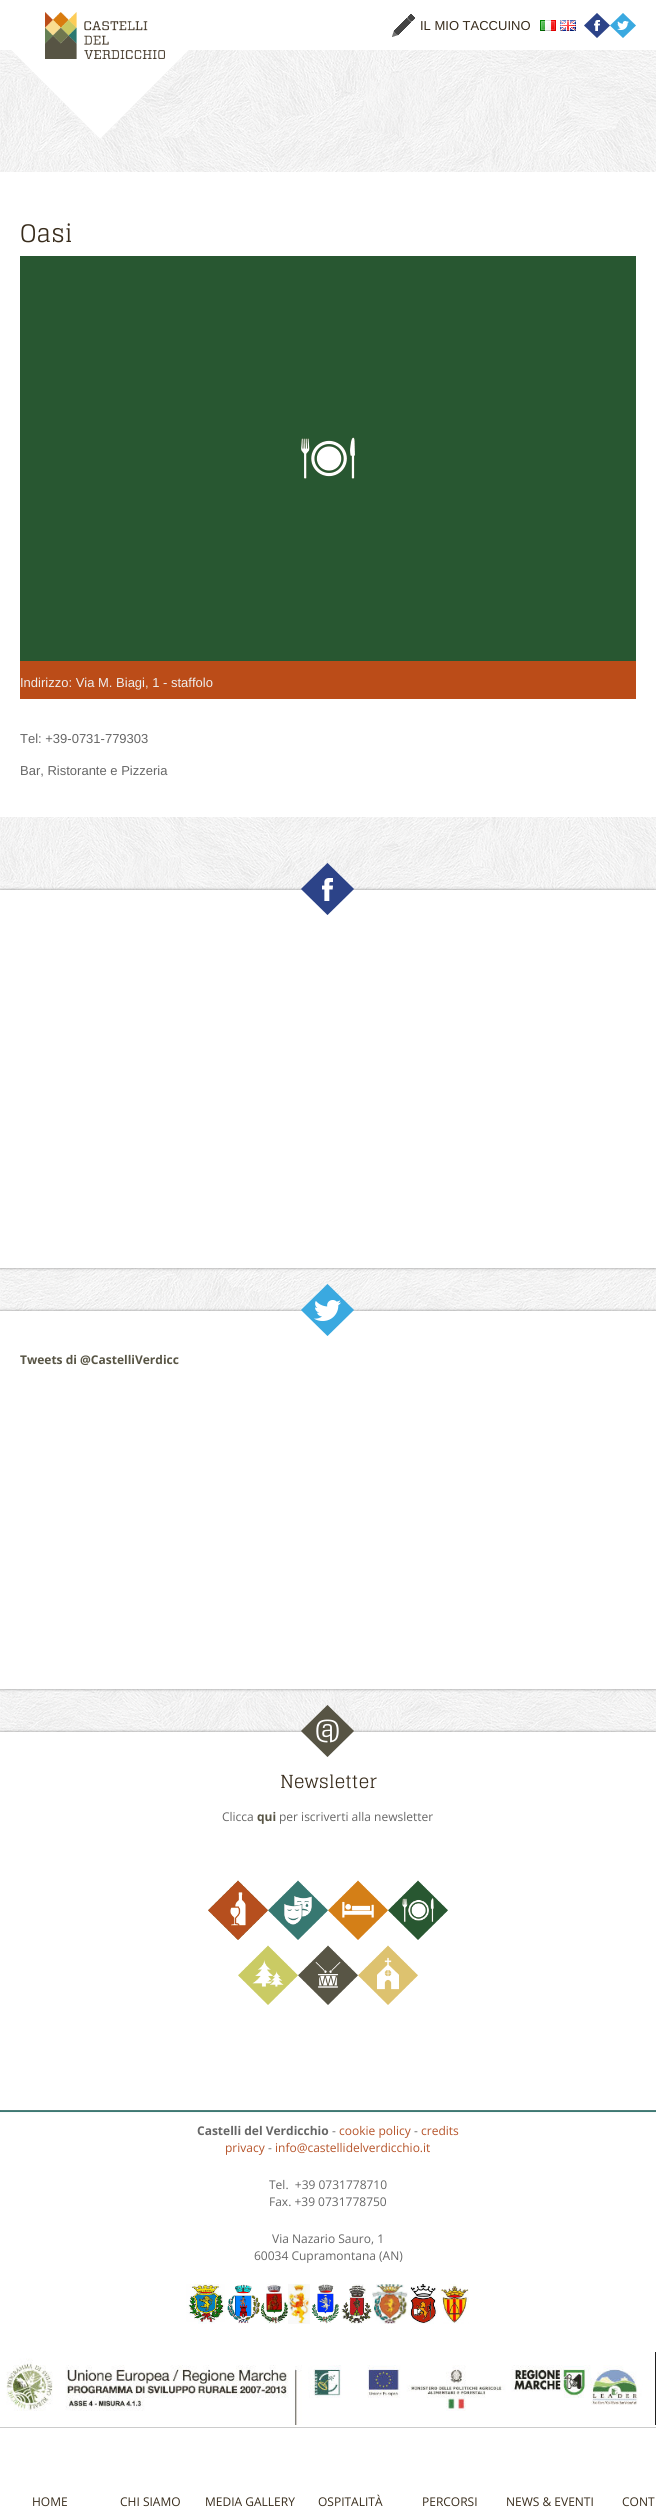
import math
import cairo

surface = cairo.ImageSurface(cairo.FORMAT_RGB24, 656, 2515)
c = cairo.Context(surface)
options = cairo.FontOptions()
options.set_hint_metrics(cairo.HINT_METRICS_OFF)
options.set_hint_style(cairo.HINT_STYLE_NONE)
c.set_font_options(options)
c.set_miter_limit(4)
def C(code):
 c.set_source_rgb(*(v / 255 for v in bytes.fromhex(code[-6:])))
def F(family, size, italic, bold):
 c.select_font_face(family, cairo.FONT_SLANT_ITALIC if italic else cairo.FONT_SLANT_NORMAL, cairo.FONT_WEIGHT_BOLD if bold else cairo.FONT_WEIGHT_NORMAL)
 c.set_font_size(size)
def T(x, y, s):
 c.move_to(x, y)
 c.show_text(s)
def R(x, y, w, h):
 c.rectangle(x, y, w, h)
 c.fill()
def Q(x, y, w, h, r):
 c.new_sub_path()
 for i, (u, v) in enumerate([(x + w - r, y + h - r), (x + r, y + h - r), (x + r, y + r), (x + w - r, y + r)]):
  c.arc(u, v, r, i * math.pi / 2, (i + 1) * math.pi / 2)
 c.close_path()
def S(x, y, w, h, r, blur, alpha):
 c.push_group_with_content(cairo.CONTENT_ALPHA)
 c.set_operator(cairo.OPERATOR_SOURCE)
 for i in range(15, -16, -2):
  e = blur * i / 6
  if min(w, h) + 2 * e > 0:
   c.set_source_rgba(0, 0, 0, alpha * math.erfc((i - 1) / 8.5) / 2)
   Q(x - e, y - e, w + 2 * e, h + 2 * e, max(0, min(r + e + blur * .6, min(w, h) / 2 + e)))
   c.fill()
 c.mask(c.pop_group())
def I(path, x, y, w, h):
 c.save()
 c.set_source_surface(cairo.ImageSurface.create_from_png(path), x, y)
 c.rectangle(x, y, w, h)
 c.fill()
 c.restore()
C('ffffff')
c.paint()
I('1.png',0,50,656,1682)
I('2.png',11,50,178,89)
I('3.png',45,12,120,47)
I('4.png',392,14,23,23)
F('Liberation Sans',13,0,0)
C('382c1c')
T(420,30,'IL MIO TACCUINO')
I('5.png',540,20,16,11)
I('6.png',560,20,16,11)
I('7.png',584,13,26,25)
I('8.png',610,13,26,25)
C('ffffff')
R(0,172,656,645)
F('Glegoo',24,0,0)
C('382c1c')
T(20,242,'Oasi')
C('285731')
R(20,256,616,405)
I('9.png',301,437,54,42)
C('bb4c18')
R(20,661,616,38)
F('Liberation Sans',13,0,0)
C('eeeeee')
T(20,687,'Indirizzo: Via M. Biagi, 1 - staffolo')
C('666666')
T(20,743,'Tel: +39-0731-779303')
T(20,775,'Bar, Ristorante e Pizzeria')
C('cccccc')
R(0,2427,656,1)
F('Open Sans',12,0,0)
C('382c1c')
T(32,2506,'HOME')
T(120,2506,'CHI SIAMO')
T(205,2506,'MEDIA GALLERY')
T(318,2506,'OSPITALITÀ')
T(422,2506,'PERCORSI')
T(506,2506,'NEWS & EVENTI')
T(622,2506,'CONT')
C('888888')
S(0,890,656,378,0,1.5,1)
C('ffffff')
R(0,890,656,378)
I('10.png',301,863,53,52)
C('888888')
S(0,1311,656,378,0,1.5,1)
C('ffffff')
R(0,1311,656,378)
I('11.png',301,1284,53,52)
F('Open Sans',12,0,1)
C('575444')
T(20,1364,'Tweets di @CastelliVerdicc')
C('2b7770')
R(0,2110,656,2)
C('888888')
S(0,1732,656,378,0,1.5,1)
C('ffffff')
R(0,1732,656,378)
I('12.png',301,1705,53,52)
F('Glegoo',18,0,0)
C('382c1c')
T(280,1788,'Newsletter')
F('Open Sans',12,0,0)
C('666666')
T(222,1821,'Clicca')
F('Open Sans',12,0,1)
C('575444')
T(257,1821,'qui')
F('Open Sans',12,0,0)
C('666666')
T(279,1821,'per iscriverti alla newsletter')
I('13.png',208,1880,60,60)
I('14.png',268,1880,60,60)
I('15.png',328,1880,60,60)
I('16.png',388,1880,60,60)
I('17.png',238,1945,60,60)
I('18.png',298,1945,60,60)
I('19.png',358,1945,60,60)
F('Open Sans',12,0,1)
T(197,2135,'Castelli del Verdicchio')
F('Open Sans',12,0,0)
T(332,2135,'-')
C('b6542a')
T(339,2135,'cookie policy')
C('666666')
T(414,2135,'-')
C('b6542a')
T(421,2135,'credits')
T(225,2152,'privacy')
C('666666')
T(268,2152,'-')
C('b6542a')
T(275,2152,'info@castellidelverdicchio.it')
C('666666')
T(269,2189,'Tel.  +39 0731778710')
T(269,2206,'Fax. +39 0731778750')
T(272,2243,'Via Nazario Sauro, 1')
T(254,2260,'60034 Cupramontana (AN)')
I('20.png',186,2284,39,40)
I('21.png',227,2284,34,40)
I('22.png',261,2284,27,40)
I('23.png',288,2284,22,40)
I('24.png',311,2284,28,40)
I('25.png',341,2284,31,40)
I('26.png',372,2284,36,40)
I('27.png',408,2284,30,40)
I('28.png',438,2284,31,40)
I('29.png',6,2352,650,73)
surface.write_to_png('o.png')
